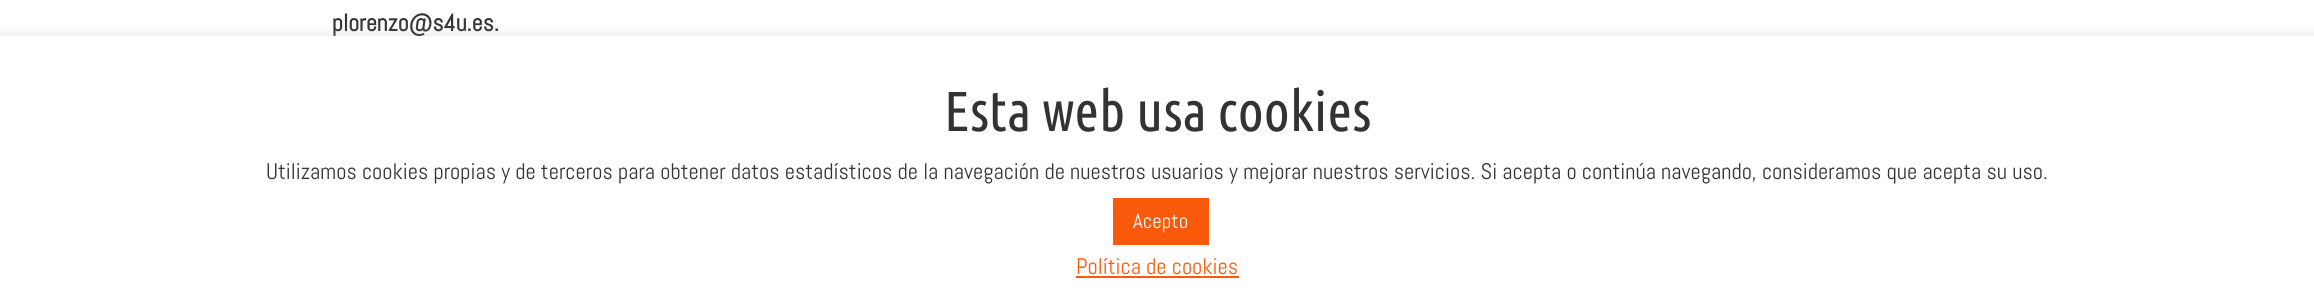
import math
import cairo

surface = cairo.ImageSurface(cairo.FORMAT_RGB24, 2314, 303)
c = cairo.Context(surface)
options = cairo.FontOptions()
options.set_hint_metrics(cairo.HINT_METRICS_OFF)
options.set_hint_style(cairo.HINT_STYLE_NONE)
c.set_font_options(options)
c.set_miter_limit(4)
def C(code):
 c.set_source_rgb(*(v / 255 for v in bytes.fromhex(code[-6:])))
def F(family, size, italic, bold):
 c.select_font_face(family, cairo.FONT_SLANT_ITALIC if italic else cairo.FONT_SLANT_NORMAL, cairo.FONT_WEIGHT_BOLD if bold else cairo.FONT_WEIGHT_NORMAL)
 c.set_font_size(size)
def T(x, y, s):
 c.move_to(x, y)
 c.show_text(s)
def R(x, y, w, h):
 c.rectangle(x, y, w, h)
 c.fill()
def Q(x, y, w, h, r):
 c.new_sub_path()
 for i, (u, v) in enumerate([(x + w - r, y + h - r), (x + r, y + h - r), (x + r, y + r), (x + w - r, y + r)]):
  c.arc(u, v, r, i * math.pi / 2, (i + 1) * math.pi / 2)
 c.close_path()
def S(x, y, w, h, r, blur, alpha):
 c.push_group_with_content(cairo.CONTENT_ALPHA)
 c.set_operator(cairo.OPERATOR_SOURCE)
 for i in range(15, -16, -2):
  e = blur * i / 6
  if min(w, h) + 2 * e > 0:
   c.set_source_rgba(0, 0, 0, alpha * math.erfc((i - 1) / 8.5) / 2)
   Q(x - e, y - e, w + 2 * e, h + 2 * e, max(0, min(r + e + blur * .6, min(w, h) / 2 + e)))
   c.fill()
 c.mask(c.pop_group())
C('ffffff')
c.paint()
F('Abel',24,0,1)
C('333333')
T(332,31,'plorenzo@s4u.es.')
C('acabab')
S(0,35,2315,267,0,7.5,.3)
C('ffffff')
R(0,36,2314,267)
F('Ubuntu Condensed',56.25,0,0)
C('333333')
T(944,131,'Esta web usa cookies')
F('Abel',22.5,0,0)
T(266,179,'Utilizamos cookies propias y de terceros para obtener datos estadísticos de la navegación de nuestros usuarios y mejorar nuestros servicios. Si acepta o continúa navegando, consideramos que acepta su uso.')
C('f95a09')
R(1113,198,96,47)
F('Abel',21,0,0)
C('ffffff')
T(1133,228,'Acepto')
F('Abel',22.5,0,0)
C('f95a09')
T(1076,274,'Política de cookies')
R(1076,276,163,2)
surface.write_to_png('o.png')
